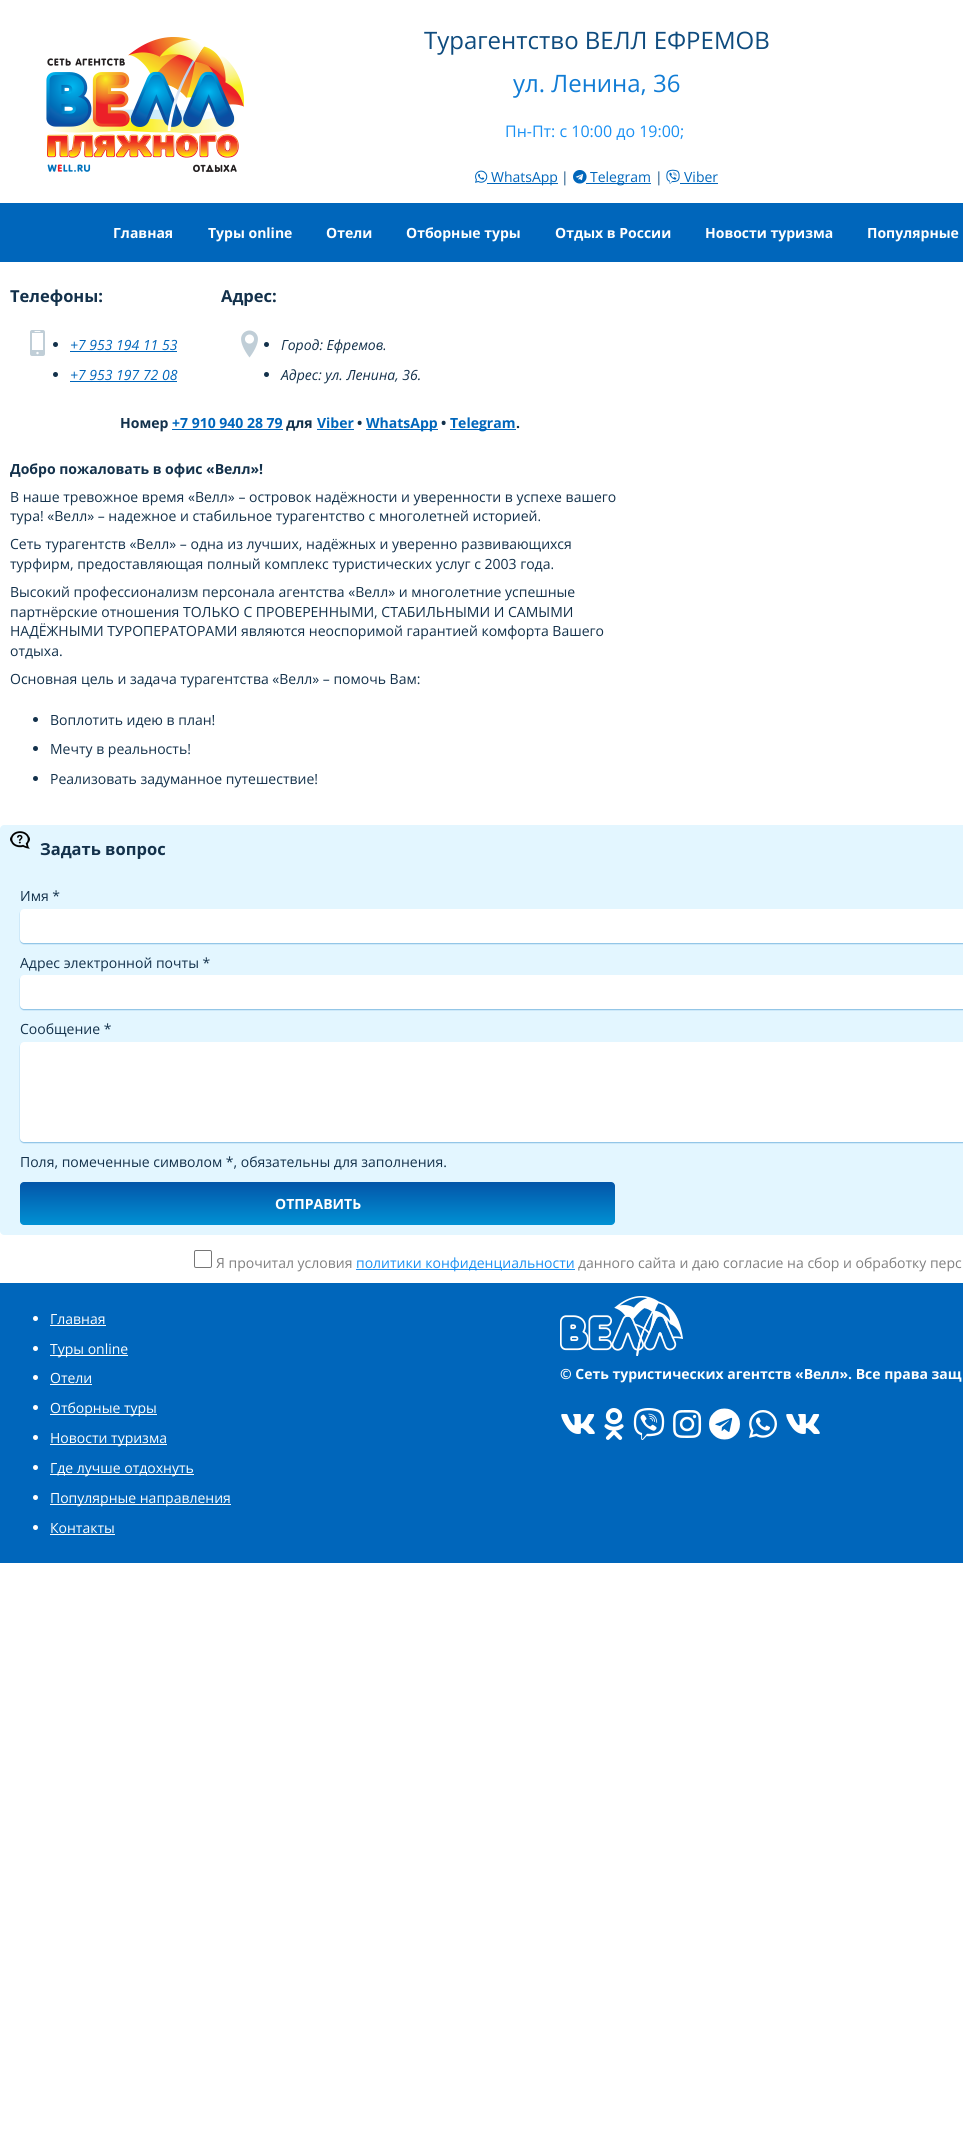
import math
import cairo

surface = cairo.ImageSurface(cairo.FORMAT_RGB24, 963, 2132)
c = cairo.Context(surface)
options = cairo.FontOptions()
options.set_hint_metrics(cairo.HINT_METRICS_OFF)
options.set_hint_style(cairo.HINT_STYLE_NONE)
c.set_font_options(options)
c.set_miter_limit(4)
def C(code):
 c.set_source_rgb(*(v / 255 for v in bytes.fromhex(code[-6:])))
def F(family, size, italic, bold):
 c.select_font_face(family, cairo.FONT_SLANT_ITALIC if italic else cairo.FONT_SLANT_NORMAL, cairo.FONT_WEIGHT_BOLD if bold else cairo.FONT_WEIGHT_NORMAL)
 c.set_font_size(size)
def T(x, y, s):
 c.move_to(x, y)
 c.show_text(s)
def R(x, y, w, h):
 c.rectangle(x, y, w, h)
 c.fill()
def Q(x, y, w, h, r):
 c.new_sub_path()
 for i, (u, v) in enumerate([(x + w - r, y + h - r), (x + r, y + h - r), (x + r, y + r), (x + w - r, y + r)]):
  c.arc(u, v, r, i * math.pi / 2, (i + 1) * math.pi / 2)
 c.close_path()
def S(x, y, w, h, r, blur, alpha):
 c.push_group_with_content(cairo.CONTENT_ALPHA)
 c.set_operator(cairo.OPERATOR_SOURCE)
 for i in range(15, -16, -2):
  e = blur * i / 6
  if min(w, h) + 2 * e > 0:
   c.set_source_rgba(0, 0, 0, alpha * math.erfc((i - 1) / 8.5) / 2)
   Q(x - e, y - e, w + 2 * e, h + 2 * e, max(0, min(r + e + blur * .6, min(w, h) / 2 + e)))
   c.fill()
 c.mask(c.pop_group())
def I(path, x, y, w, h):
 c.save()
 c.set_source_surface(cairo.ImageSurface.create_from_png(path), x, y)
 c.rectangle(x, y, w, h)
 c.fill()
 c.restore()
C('ffffff')
c.paint()
I('1.png',46,37,198,135)
F('Open Sans',24,0,0)
C('0e4b7e')
T(424,49,'Турагентство ВЕЛЛ ЕФРЕМОВ')
C('107cd5')
T(513,92,'ул. Ленина, 36')
F('Open Sans',16,0,0)
C('1990f3')
T(505,137,'Пн-Пт: c 10:00 до 19:00;')
I('2.png',475,170,13,13)
C('0066bb')
R(487,183,71,1)
F('Open Sans',14,0,0)
T(491,182,'WhatsApp')
C('0e4b7e')
T(561,182,'|')
I('3.png',573,170,14,14)
C('0066bb')
R(586,183,65,1)
T(590,182,'Telegram')
C('0e4b7e')
T(655,182,'|')
I('4.png',666,169,14,15)
C('0066bb')
T(684,182,'Viber')
R(680,183,38,1)
R(0,203,963,59)
F('Open Sans',14,0,1)
C('ffffff')
T(113,238,'Главная')
T(208,238,'Туры online')
T(326,238,'Отели')
T(406,238,'Отборные туры')
T(555,238,'Отдых в России')
T(705,238,'Новости туризма')
T(867,238,'Популярные')
F('Open Sans',16.5,0,1)
C('13314b')
T(10,302,'Телефоны:')
I('5.png',30,330,15,26)
c.arc(55.5,344.5,2.5,0,2 * math.pi)
c.fill()
F('Open Sans',14,1,0)
C('0066bb')
T(70,350,'+7 953 194 11 53')
R(70,351,107,1)
C('13314b')
c.new_path()
c.arc(55.5,374.5,2.5,0,2 * math.pi)
c.fill()
C('0066bb')
T(70,380,'+7 953 197 72 08')
R(70,381,107,1)
F('Open Sans',16.5,0,1)
C('13314b')
T(221,302,'Адрес:')
I('6.png',241,330,17,28)
c.arc(266.5,344.5,2.5,0,2 * math.pi)
c.fill()
F('Open Sans',14,1,0)
T(281,350,'Город: Ефремов.')
c.new_path()
c.arc(266.5,374.5,2.5,0,2 * math.pi)
c.fill()
T(281,380,'Адрес: ул. Ленина, 36.')
F('Open Sans',14,0,1)
T(120,428,'Номер')
C('0066bb')
T(172,428,'+7 910 940 28 79')
R(172,429,111,1)
C('13314b')
T(286,428,'для')
C('0066bb')
T(317,428,'Viber')
R(317,429,37,1)
C('13314b')
T(357,428,'•')
C('0066bb')
R(366,429,72,1)
T(366,428,'WhatsApp')
C('13314b')
T(441,428,'•')
C('0066bb')
R(450,429,66,1)
T(450,428,'Telegram')
C('13314b')
T(516,428,'.')
T(10,474,'Добро пожаловать в офис «Велл»!')
F('Open Sans',14,0,0)
T(10,502,'В наше тревожное время «Велл» – островок надёжности и уверенности в успехе вашего')
T(10,521,'тура! «Велл» – надежное и стабильное турагентство с многолетней историей.')
T(10,549,'Сеть турагентств «Велл» – одна из лучших, надёжных и уверенно развивающихся')
T(10,569,'турфирм, предоставляющая полный комплекс туристических услуг с 2003 года.')
T(10,597,'Высокий профессионализм персонала агентства «Велл» и многолетние успешные')
T(10,617,'партнёрские отношения ТОЛЬКО С ПРОВЕРЕННЫМИ, СТАБИЛЬНЫМИ И САМЫМИ')
T(10,636,'НАДЁЖНЫМИ ТУРОПЕРАТОРАМИ являются неоспоримой гарантией комфорта Вашего')
T(10,656,'отдыха.')
T(10,684,'Основная цель и задача турагентства «Велл» – помочь Вам:')
c.new_path()
c.arc(35.5,719.5,2.5,0,2 * math.pi)
c.fill()
T(50,725,'Воплотить идею в план!')
c.new_path()
c.arc(35.5,748.5,2.5,0,2 * math.pi)
c.fill()
T(50,754,'Мечту в реальность!')
c.new_path()
c.arc(35.5,778.5,2.5,0,2 * math.pi)
c.fill()
T(50,784,'Реализовать задуманное путешествие!')
C('e3f6ff')
c.new_path()
c.move_to(4,825)
c.line_to(963,825)
c.curve_to(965,825,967,827,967,829)
c.line_to(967,872)
c.line_to(0,872)
c.line_to(0,829)
c.curve_to(0,827,2,825,4,825)
c.close_path()
c.fill()
I('7.png',10,830,20,20)
F('Open Sans',16.5,0,1)
C('13314b')
T(40,855,'Задать вопрос')
C('e3f6ff')
c.new_path()
c.move_to(0,872)
c.line_to(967,872)
c.line_to(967,1231)
c.curve_to(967,1233,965,1235,963,1235)
c.line_to(4,1235)
c.curve_to(2,1235,0,1233,0,1231)
c.close_path()
c.fill()
F('Open Sans',14,0,0)
C('13314b')
T(20,901,'Имя *')
C('006ebb')
S(20,910,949,34,4,.5,.4)
C('ffffff')
Q(20,909,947,34,4)
c.fill()
C('13314b')
T(20,968,'Адрес электронной почты *')
C('006ebb')
S(20,976,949,34,4,.5,.4)
C('ffffff')
Q(20,975,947,34,4)
c.fill()
C('13314b')
T(20,1034,'Сообщение *')
C('006ebb')
S(20,1043,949,100,4,.5,.4)
C('ffffff')
Q(20,1042,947,100,4)
c.fill()
C('13314b')
T(20,1167,'Поля, помеченные символом *, обязательны для заполнения.')
gradient = cairo.LinearGradient(318,1225,318,1182)
gradient.add_color_stop_rgba(0,0.004,0.569,0.831,1)
gradient.add_color_stop_rgba(1,0.012,0.333,0.659,1)
c.set_source(gradient)
Q(20,1182,595,43,4)
c.fill()
F('Open Sans',14,0,1)
C('ffffff')
T(275,1209,'ОТПРАВИТЬ')
Q(194.5,1250.5,17,17,1.5)
C('767676')
c.set_line_width(1)
c.stroke()
F('Open Sans',14,0,0)
C('808080')
T(216,1268,'Я прочитал условия')
C('1990f3')
R(356,1269,219,1)
T(356,1268,'политики конфиденциальности')
C('808080')
T(578,1268,'данного сайта и даю согласие на сбор и обработку перс')
C('0066bb')
R(0,1283,963,280)
C('ffffff')
c.new_path()
c.arc(35.5,1318.5,2.5,0,2 * math.pi)
c.fill()
T(50,1324,'Главная')
R(50,1325,56,1)
c.new_path()
c.arc(35.5,1348.5,2.5,0,2 * math.pi)
c.fill()
R(50,1355,78,1)
T(50,1354,'Туры online')
c.new_path()
c.arc(35.5,1377.5,2.5,0,2 * math.pi)
c.fill()
T(50,1383,'Отели')
R(50,1384,42,1)
c.new_path()
c.arc(35.5,1407.5,2.5,0,2 * math.pi)
c.fill()
R(50,1414,107,1)
T(50,1413,'Отборные туры')
c.new_path()
c.arc(35.5,1437.5,2.5,0,2 * math.pi)
c.fill()
R(50,1444,117,1)
T(50,1443,'Новости туризма')
c.new_path()
c.arc(35.5,1467.5,2.5,0,2 * math.pi)
c.fill()
R(50,1474,144,1)
T(50,1473,'Где лучше отдохнуть')
c.new_path()
c.arc(35.5,1497.5,2.5,0,2 * math.pi)
c.fill()
R(50,1504,181,1)
T(50,1503,'Популярные направления')
c.new_path()
c.arc(35.5,1527.5,2.5,0,2 * math.pi)
c.fill()
T(50,1533,'Контакты')
R(50,1534,65,1)
I('8.png',560,1296,123,60)
F('Open Sans',14,0,1)
T(560,1379,'© Сеть туристических агентств «Велл». Все права защ')
I('9.png',561,1414,34,20)
I('10.png',604,1408,20,32)
I('11.png',633,1408,32,32)
I('12.png',673,1410,29,28)
I('13.png',709,1408,31,32)
I('14.png',749,1410,28,28)
I('9.png',786,1414,34,20)
surface.write_to_png('o.png')
